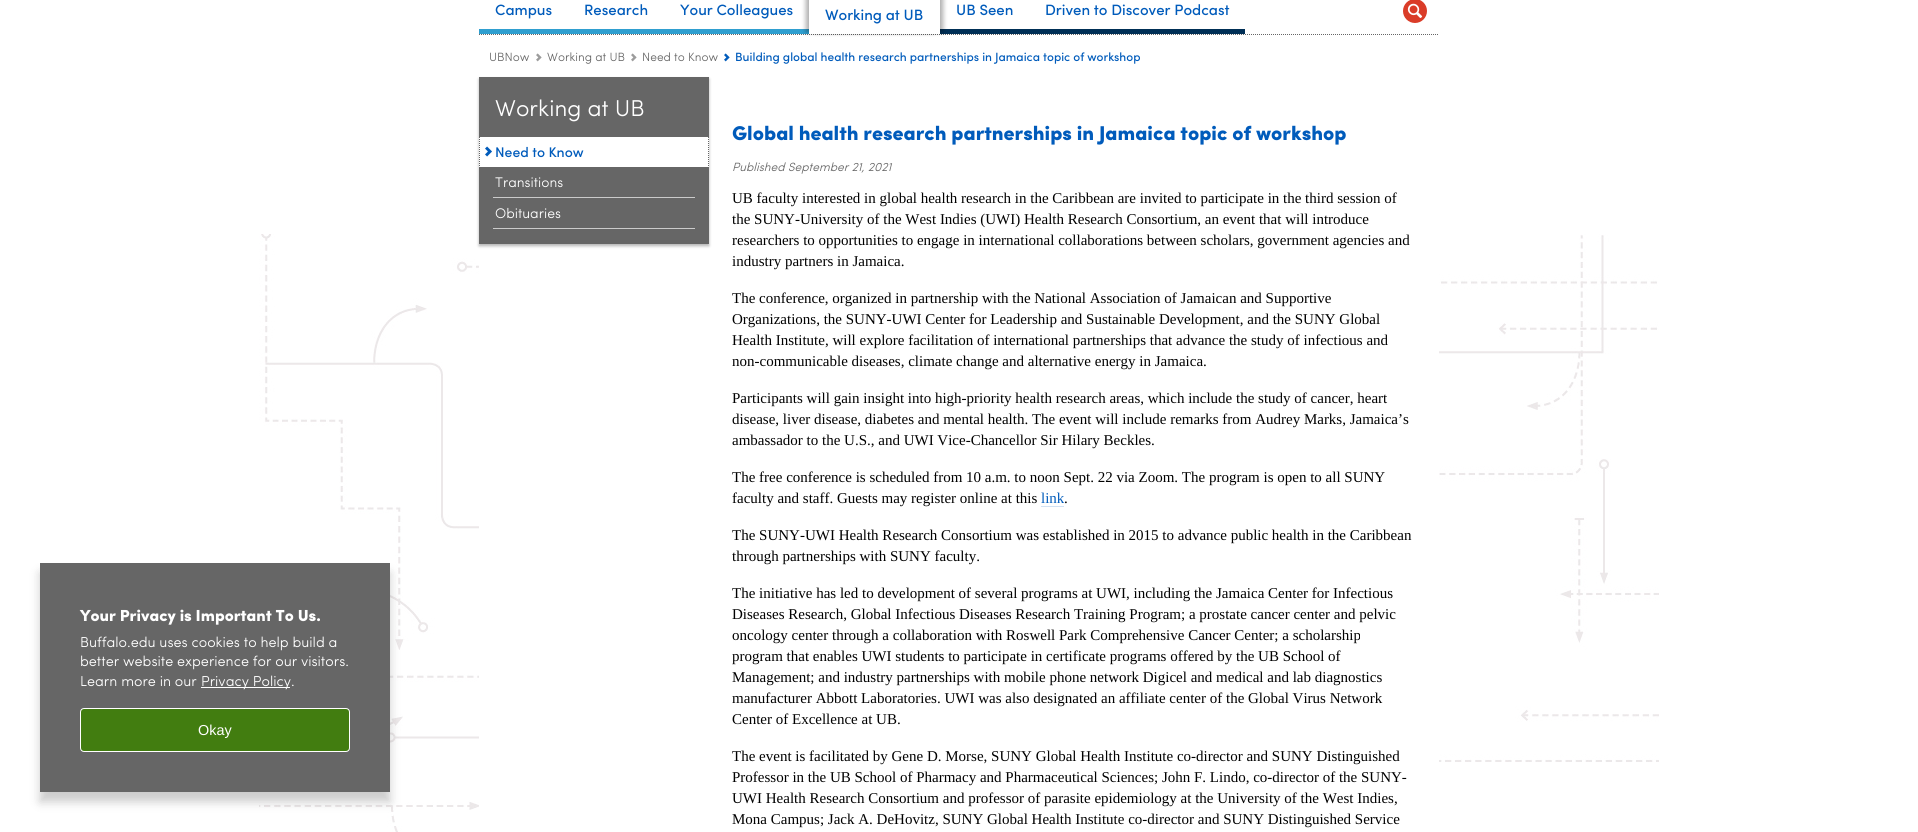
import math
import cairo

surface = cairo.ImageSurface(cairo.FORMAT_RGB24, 1918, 832)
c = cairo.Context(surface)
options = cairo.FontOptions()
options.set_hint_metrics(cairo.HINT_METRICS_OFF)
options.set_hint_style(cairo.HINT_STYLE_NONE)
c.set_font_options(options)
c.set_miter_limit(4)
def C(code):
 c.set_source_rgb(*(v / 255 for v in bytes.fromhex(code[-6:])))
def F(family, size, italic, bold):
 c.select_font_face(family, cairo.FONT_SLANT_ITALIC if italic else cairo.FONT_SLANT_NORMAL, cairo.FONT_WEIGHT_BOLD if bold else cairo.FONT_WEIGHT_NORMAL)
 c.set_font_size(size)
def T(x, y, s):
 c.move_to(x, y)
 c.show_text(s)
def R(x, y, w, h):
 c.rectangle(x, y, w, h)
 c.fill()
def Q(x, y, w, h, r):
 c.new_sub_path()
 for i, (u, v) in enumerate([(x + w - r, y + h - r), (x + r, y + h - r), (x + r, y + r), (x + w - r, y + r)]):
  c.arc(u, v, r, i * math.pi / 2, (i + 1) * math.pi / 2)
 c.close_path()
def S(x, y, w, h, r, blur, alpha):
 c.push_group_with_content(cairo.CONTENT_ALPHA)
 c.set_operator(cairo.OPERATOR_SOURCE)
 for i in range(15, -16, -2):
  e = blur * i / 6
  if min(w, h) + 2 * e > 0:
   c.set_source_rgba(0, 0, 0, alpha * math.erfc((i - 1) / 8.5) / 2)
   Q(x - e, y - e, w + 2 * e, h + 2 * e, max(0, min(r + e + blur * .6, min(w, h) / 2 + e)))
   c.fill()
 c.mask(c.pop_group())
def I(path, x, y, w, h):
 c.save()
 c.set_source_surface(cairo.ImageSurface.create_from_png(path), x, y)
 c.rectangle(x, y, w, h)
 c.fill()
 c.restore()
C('ffffff')
c.paint()
I('5.png',259,234,1400,598)
C('000000')
S(40,573,350,229,0,5,.2)
C('666666')
R(40,563,350,229)
F('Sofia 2',16,0,0)
C('ffffff')
T(80,621,'Your Privacy is Important To Us.')
F('Sofia',14.4,0,0)
T(80,647,'Buffalo.edu uses cookies to help build a')
T(80,666,'better website experience for our visitors.')
T(80,686,'Learn more in our')
R(201,687,89,1)
T(201,686,'Privacy Policy.')
C('427d10')
Q(80.5,708.5,269,43,3.5)
c.fill_preserve()
C('ffffff')
c.set_line_width(1)
c.stroke()
F('Liberation Sans',14.4,0,0)
T(198,735,'Okay')
c.new_path()
c.move_to(479,34.5)
c.line_to(1439,34.5)
C('666666')
c.set_dash([1,1])
c.stroke()
F('Sofia Medium',15,0,0)
C('005bbb')
T(495,15,'Campus')
C('2f9fd0')
R(479,29,330,5)
C('005bbb')
T(584,15,'Research')
T(680,15,'Your Colleagues')
C('002f56')
R(940,29,305,5)
c.save()
c.set_fill_rule(cairo.FILL_RULE_EVEN_ODD)
c.new_path()
c.move_to(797,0)
c.line_to(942,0)
c.line_to(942,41)
c.line_to(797,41)
c.close_path()
c.move_to(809,-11)
c.line_to(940,-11)
c.line_to(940,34)
c.line_to(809,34)
c.close_path()
c.clip()
C('000000')
S(806,-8,127,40,0,2.5,.33)
c.restore()
c.save()
c.set_fill_rule(cairo.FILL_RULE_EVEN_ODD)
c.new_path()
c.move_to(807,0)
c.line_to(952,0)
c.line_to(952,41)
c.line_to(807,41)
c.close_path()
c.move_to(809,-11)
c.line_to(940,-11)
c.line_to(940,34)
c.line_to(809,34)
c.close_path()
c.clip()
C('000000')
S(816,-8,127,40,0,2.5,.33)
c.restore()
C('005bbb')
T(825,20,'Working at UB')
T(956,15,'UB Seen')
T(1045,15,'Driven to Discover Podcast')
C('da3c28')
c.new_path()
c.arc(1415,11,12,0,2 * math.pi)
c.fill()
I('1.png',1407,3,16,15)
F('Sofia',12,0,0)
C('666666')
T(489,61,'UBNow')
I('2.png',536,53,6,9)
T(547,61,'Working at UB')
I('2.png',631,53,6,9)
T(642,61,'Need to Know')
I('3.png',724,53,6,9)
F('Sofia Medium',12,0,0)
C('005bbb')
T(735,61,'Building global health research partnerships in Jamaica topic of workshop')
C('ffffff')
R(479,235,960,597)
C('000000')
S(479,79,230,167,0,1.5,.3)
C('666666')
R(479,77,230,167)
F('Sofia',23,0,0)
C('ffffff')
T(495,116,'Working at UB')
R(479,137,230,30)
c.new_path()
c.move_to(708.5,137)
c.line_to(708.5,167)
C('666666')
c.stroke()
c.new_path()
c.move_to(479.5,137)
c.line_to(479.5,167)
c.stroke()
I('4.png',485,146,7,11)
F('Sofia Medium',14,0,0)
C('005bbb')
T(495,157,'Need to Know')
F('Sofia',14,0,0)
C('ffffff')
T(495,187,'Transitions')
C('cbcbcb')
R(493,197,202,1)
R(493,228,202,1)
C('ffffff')
T(495,218,'Obituaries')
F('Sofia 2',20,0,0)
C('005bbb')
T(732,140,'Global health research partnerships in Jamaica topic of workshop')
F('Sofia',12,1,0)
C('666666')
T(732,171,'Published September 21, 2021')
F('Liberation Serif',15,0,0)
C('000000')
T(732,203,'UB faculty interested in global health research in the Caribbean are invited to participate in the third session of')
T(732,224,'the SUNY-University of the West Indies (UWI) Health Research Consortium, an event that will introduce')
T(732,245,'researchers to opportunities to engage in international collaborations between scholars, government agencies and')
T(732,266,'industry partners in Jamaica.')
T(732,303,'The conference, organized in partnership with the National Association of Jamaican and Supportive')
T(732,324,'Organizations, the SUNY-UWI Center for Leadership and Sustainable Development, and the SUNY Global')
T(732,345,'Health Institute, will explore facilitation of international partnerships that advance the study of infectious and')
T(732,366,'non-communicable diseases, climate change and alternative energy in Jamaica.')
T(732,403,'Participants will gain insight into high-priority health research areas, which include the study of cancer, heart')
T(732,424,'disease, liver disease, diabetes and mental health. The event will include remarks from Audrey Marks, Jamaica’s')
T(732,445,'ambassador to the U.S., and UWI Vice-Chancellor Sir Hilary Beckles.')
T(732,482,'The free conference is scheduled from 10 a.m. to noon Sept. 22 via Zoom. The program is open to all SUNY')
T(732,503,'faculty and staff. Guests may register online at this')
C('005bbb')
T(1041,503,'link')
C('d1e1f3')
R(1041,506,23,1)
C('000000')
T(1064,503,'.')
T(732,540,'The SUNY-UWI Health Research Consortium was established in 2015 to advance public health in the Caribbean')
T(732,561,'through partnerships with SUNY faculty.')
T(732,598,'The initiative has led to development of several programs at UWI, including the Jamaica Center for Infectious')
T(732,619,'Diseases Research, Global Infectious Diseases Research Training Program; a prostate cancer center and pelvic')
T(732,640,'oncology center through a collaboration with Roswell Park Comprehensive Cancer Center; a scholarship')
T(732,661,'program that enables UWI students to participate in certificate programs offered by the UB School of')
T(732,682,'Management; and industry partnerships with mobile phone network Digicel and medical and lab diagnostics')
T(732,703,'manufacturer Abbott Laboratories. UWI was also designated an affiliate center of the Global Virus Network')
T(732,724,'Center of Excellence at UB.')
T(732,761,'The event is facilitated by Gene D. Morse, SUNY Global Health Institute co-director and SUNY Distinguished')
T(732,782,'Professor in the UB School of Pharmacy and Pharmaceutical Sciences; John F. Lindo, co-director of the SUNY-')
T(732,803,'UWI Health Research Consortium and professor of parasite epidemiology at the University of the West Indies,')
T(732,824,'Mona Campus; Jack A. DeHovitz, SUNY Global Health Institute co-director and SUNY Distinguished Service')
surface.write_to_png('o.png')
